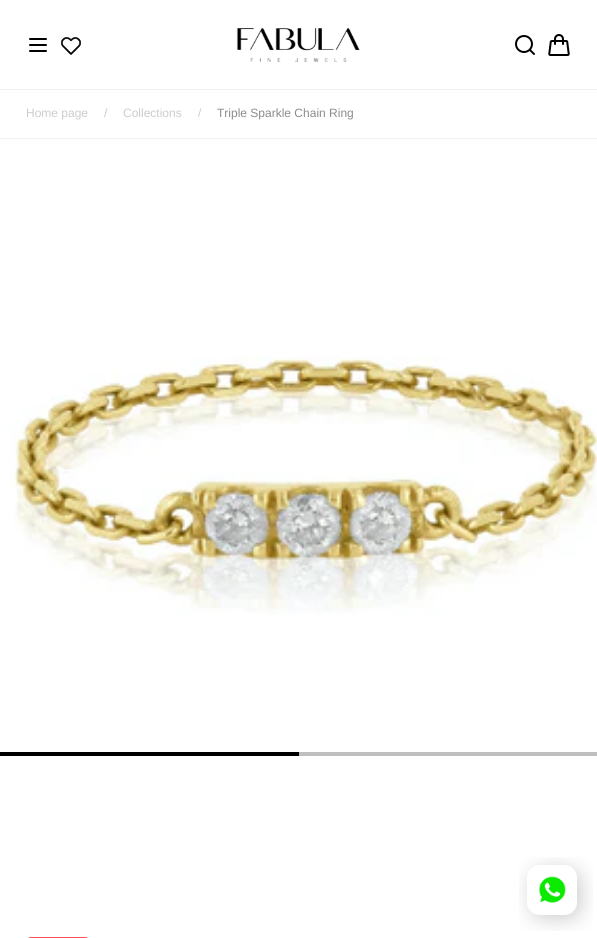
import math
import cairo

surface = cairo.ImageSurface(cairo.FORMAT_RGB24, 597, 938)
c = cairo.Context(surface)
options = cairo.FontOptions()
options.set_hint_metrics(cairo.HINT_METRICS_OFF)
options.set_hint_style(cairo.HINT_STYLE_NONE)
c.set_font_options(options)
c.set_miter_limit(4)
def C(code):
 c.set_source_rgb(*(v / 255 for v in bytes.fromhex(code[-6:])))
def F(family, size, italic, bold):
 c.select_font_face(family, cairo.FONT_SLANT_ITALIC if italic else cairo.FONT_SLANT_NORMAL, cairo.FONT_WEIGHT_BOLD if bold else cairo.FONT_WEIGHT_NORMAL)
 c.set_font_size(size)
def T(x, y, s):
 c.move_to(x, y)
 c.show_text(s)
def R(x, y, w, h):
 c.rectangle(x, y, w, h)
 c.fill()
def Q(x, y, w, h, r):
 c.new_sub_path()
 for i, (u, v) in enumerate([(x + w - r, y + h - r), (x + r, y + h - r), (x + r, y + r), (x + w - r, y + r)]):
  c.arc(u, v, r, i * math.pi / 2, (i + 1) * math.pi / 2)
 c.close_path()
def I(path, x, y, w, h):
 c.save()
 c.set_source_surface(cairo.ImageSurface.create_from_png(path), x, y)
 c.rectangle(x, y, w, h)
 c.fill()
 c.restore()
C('ffffff')
c.paint()
C('f2f2f2')
R(0,89,597,1)
I('1.png',29,38,18,14)
I('2.png',61,37,20,18)
I('3.png',236,28,124,34)
I('4.png',515,35,20,20)
I('5.png',548,34,22,22)
R(0,138,597,1)
F('Arimo',12,0,0)
C('cccccc')
T(26,117,'Home page')
T(104,117,'/')
T(123,117,'Collections')
T(198,117,'/')
C('8c8c8c')
T(217,117,'Triple Sparkle Chain Ring')
I('6.png',9,356,588,259)
C('bfbfbf')
R(299,752,298,4)
C('000000')
R(0,752,299,4)
C('ff4f4f')
Q(26,937,64,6,5)
c.fill()
I('7.png',519,857,74,74)
surface.write_to_png('o.png')
